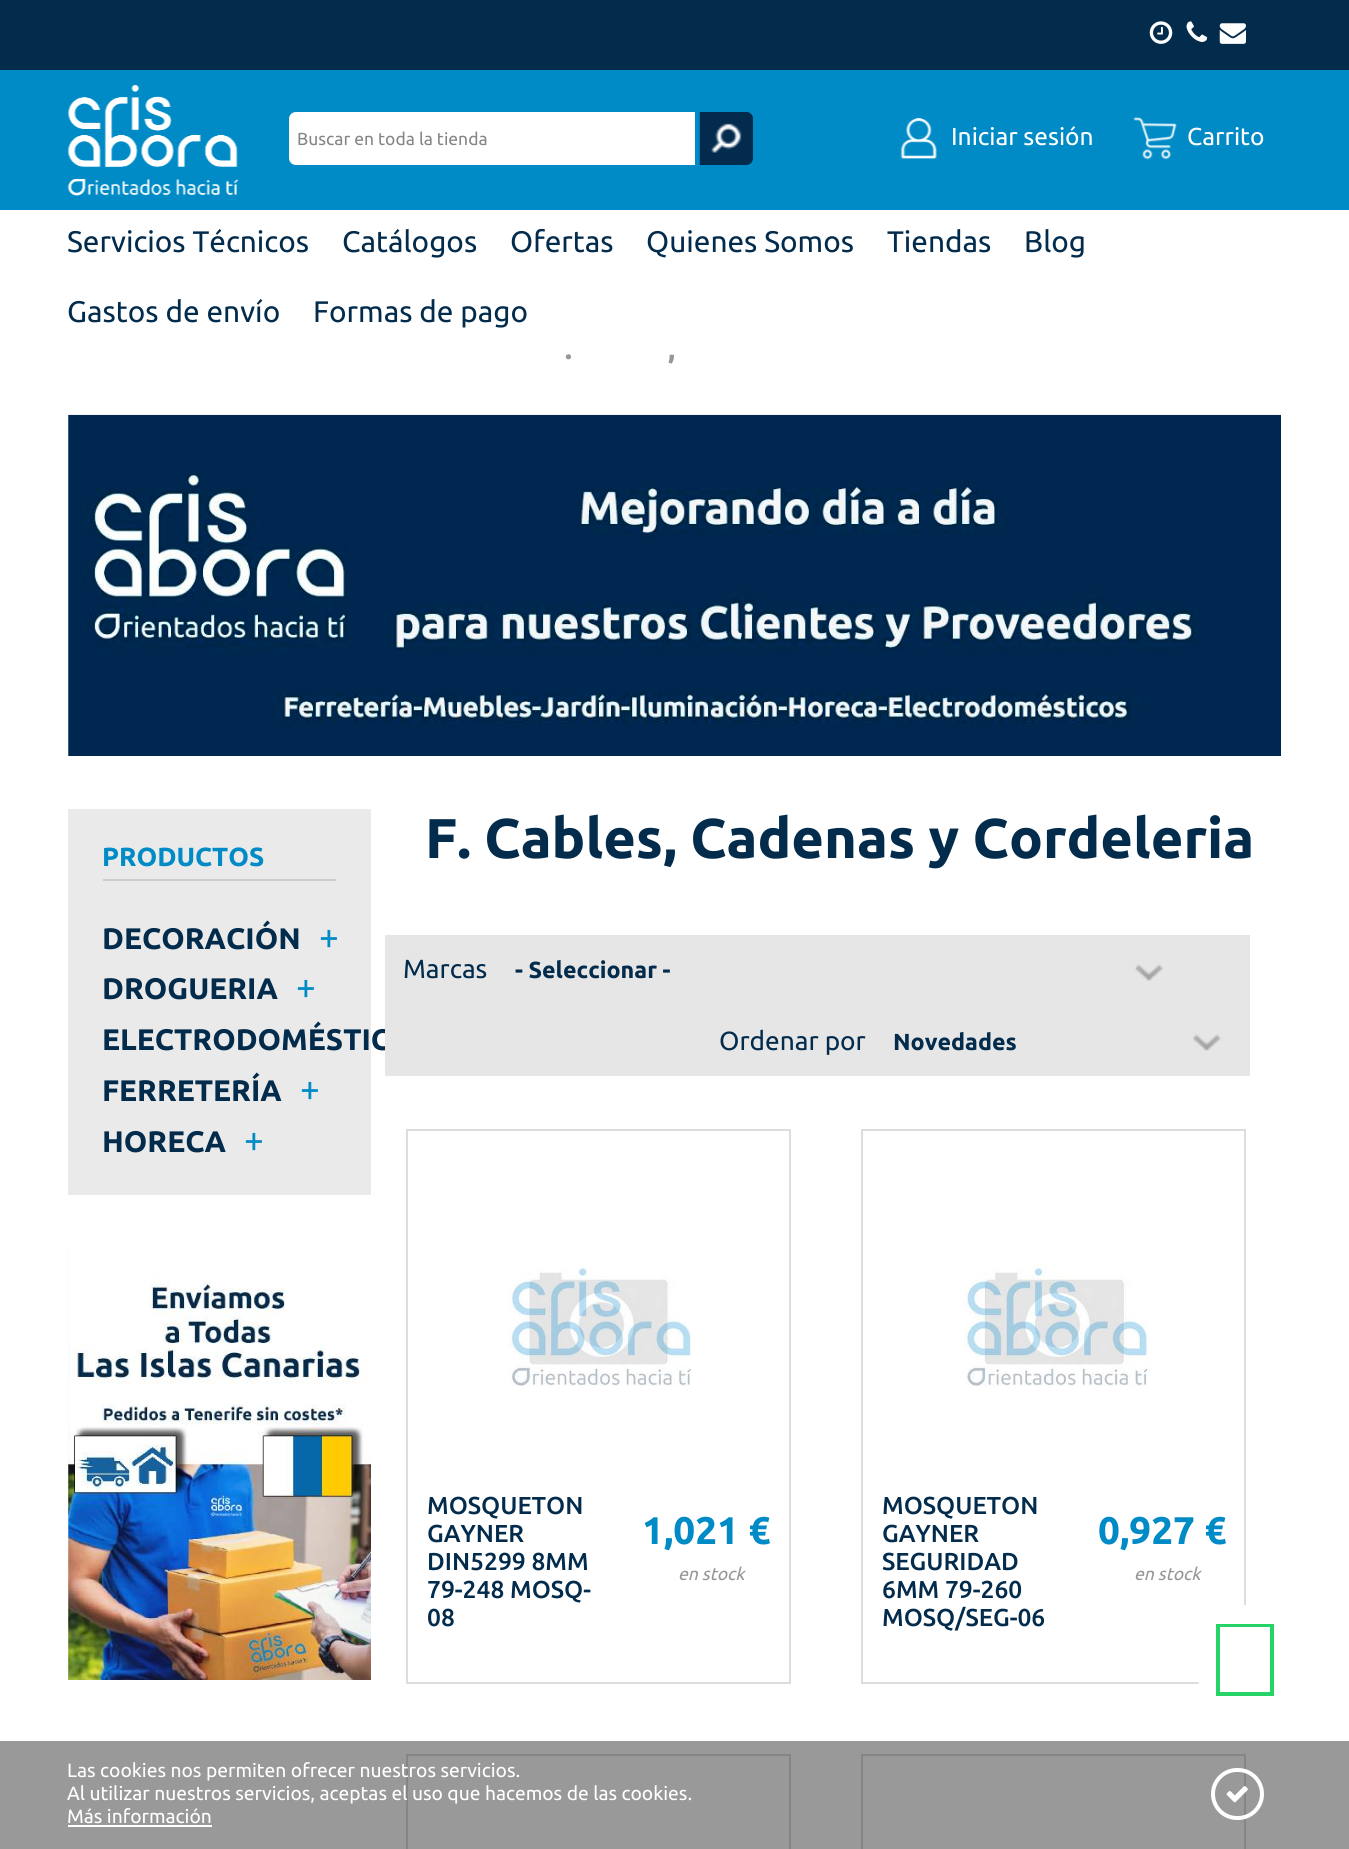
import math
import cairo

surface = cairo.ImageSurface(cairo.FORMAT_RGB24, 1349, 1849)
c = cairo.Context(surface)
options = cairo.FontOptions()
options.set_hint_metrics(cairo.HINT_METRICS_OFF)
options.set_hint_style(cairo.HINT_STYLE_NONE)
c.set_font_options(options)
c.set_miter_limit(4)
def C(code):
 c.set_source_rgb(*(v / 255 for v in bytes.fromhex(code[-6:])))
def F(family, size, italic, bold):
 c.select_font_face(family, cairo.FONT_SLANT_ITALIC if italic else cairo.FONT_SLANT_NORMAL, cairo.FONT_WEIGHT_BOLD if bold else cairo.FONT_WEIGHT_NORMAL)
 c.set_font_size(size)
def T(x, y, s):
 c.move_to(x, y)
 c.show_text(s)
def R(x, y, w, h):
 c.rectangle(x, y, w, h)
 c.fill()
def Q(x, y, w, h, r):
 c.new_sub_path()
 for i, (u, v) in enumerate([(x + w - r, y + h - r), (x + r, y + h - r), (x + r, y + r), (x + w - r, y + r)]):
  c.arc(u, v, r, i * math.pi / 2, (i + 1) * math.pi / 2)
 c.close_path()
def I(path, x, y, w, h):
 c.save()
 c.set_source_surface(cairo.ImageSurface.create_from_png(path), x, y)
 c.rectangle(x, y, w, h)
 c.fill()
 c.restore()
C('ffffff')
c.paint()
C('999999')
R(0,1741,1349,108)
C('022b4c')
R(0,0,1349,70)
I('1.png',1149,21,24,23)
I('2.png',1186,21,22,21)
I('3.png',1219,23,27,21)
C('008bc6')
R(0,70,1349,140)
I('4.png',67,84,172,112)
C('ffffff')
c.new_path()
c.move_to(296,112)
c.line_to(695,112)
c.line_to(695,165)
c.line_to(296,165)
c.curve_to(292,165,289,162,289,158)
c.line_to(289,119)
c.curve_to(289,115,292,112,296,112)
c.close_path()
c.fill()
F('Ubuntu',17.5,0,0)
C('868686')
T(297,145,'Buscar en toda la tienda')
C('022b4c')
c.new_path()
c.move_to(700,112)
c.line_to(746,112)
c.curve_to(750,112,753,115,753,119)
c.line_to(753,158)
c.curve_to(753,162,750,165,746,165)
c.line_to(700,165)
c.close_path()
c.fill()
I('5.png',699,112,54,53)
I('6.png',900,118,37,41)
F('Ubuntu',24.5,0,0)
C('ffffff')
T(951,145,'Iniciar sesión')
I('7.png',1133,117,44,43)
T(1187,145,'Carrito')
F('Ubuntu',29.75,0,0)
C('022b4c')
T(67,252,'Servicios Técnicos')
T(342,252,'Catálogos')
T(510,252,'Ofertas')
T(646,252,'Quienes Somos')
T(887,252,'Tiendas')
T(1024,252,'Blog')
T(67,322,'Gastos de envío')
T(313,322,'Formas de pago')
F('Ubuntu',28,0,1)
C('969696')
T(565,359,'.')
T(668,359,',')
I('8.png',68,414,1213,342)
C('eaeaea')
R(68,809,303,871)
C('cccccc')
R(103,879,233,2)
F('Ubuntu',26.25,0,1)
C('008bc6')
T(102,866,'PRODUCTOS')
F('Ubuntu',29.75,0,1)
C('022b4c')
T(102,949,'DECORACIÓN')
F('Ubuntu',35,0,0)
C('008bc6')
T(319,949,'+')
F('Ubuntu',29.75,0,1)
C('022b4c')
T(102,999,'DROGUERIA')
F('Ubuntu',35,0,0)
C('008bc6')
T(296,999,'+')
F('Ubuntu',29.75,0,1)
C('022b4c')
T(102,1050,'ELECTRODOMÉSTIC')
T(102,1101,'FERRETERÍA')
F('Ubuntu',35,0,0)
C('008bc6')
T(300,1101,'+')
F('Ubuntu',29.75,0,1)
C('022b4c')
T(102,1152,'HORECA')
F('Ubuntu',35,0,0)
C('008bc6')
T(244,1152,'+')
C('ffffff')
R(68,1195,303,53)
I('9.png',68,1248,303,432)
F('Ubuntu',56,0,1)
C('022b4c')
T(425,858,'F. Cables, Cadenas y Cordeleria')
C('e6e6e6')
R(385,935,865,141)
F('Ubuntu',26.25,0,0)
C('022b4c')
T(403,978,'Marcas')
I('10.png',1135,964,28,17)
F('Ubuntu',23.25,0,1)
T(515,978,'- Seleccionar -')
F('Ubuntu',26.25,0,0)
T(719,1050,'Ordenar por')
I('11.png',1193,1034,28,17)
F('Ubuntu',23.25,0,1)
T(893,1050,'Novedades')
c.rectangle(407,1130,383,553)
C('dddddd')
c.stroke()
I('12.png',508,1263,183,123)
F('Ubuntu Medium',24.5,0,0)
C('022b4c')
T(427,1514,'MOSQUETON')
T(427,1542,'GAYNER')
T(427,1570,'DIN5299 8MM')
T(427,1598,'79-248 MOSQ-')
T(427,1626,'08')
F('Ubuntu',38.5,0,1)
C('008bc6')
T(642,1544,'1,021 €')
F('Ubuntu',17.5,1,0)
C('969696')
T(678,1580,'en stock')
c.rectangle(862,1130,383,553)
C('dddddd')
c.stroke()
I('13.png',963,1263,187,123)
F('Ubuntu Medium',24.5,0,0)
C('022b4c')
T(882,1514,'MOSQUETON')
T(882,1542,'GAYNER')
T(882,1570,'SEGURIDAD')
T(882,1598,'6MM 79-260')
T(882,1626,'MOSQ/SEG-06')
F('Ubuntu',38.5,0,1)
C('008bc6')
T(1098,1544,'0,927 €')
F('Ubuntu',17.5,1,0)
C('969696')
T(1134,1580,'en stock')
c.rectangle(407,1755,383,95)
C('858585')
c.stroke()
c.rectangle(862,1755,383,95)
c.stroke()
C('ffffff')
c.arc(1244.5,1657.5,52.5,0,2 * math.pi)
c.fill()
C('25d366')
c.new_path()
c.move_to(1216,1624)
c.line_to(1274,1624)
c.line_to(1274,1696)
c.line_to(1216,1696)
c.close_path()
c.move_to(1220,1627)
c.line_to(1220,1692)
c.line_to(1270,1692)
c.line_to(1270,1627)
c.close_path()
c.fill()
F('Ubuntu',19.25,0,0)
C('ffffff')
T(67,1777,'Las cookies nos permiten ofrecer nuestros servicios.')
T(67,1800,'Al utilizar nuestros servicios, aceptas el uso que hacemos de las cookies.')
T(67,1823,'Más información')
R(68,1825,144,2)
Q(1213,1770,49,48,24)
c.set_line_width(4)
c.stroke()
I('14.png',1226,1786,22,17)
surface.write_to_png('o.png')
